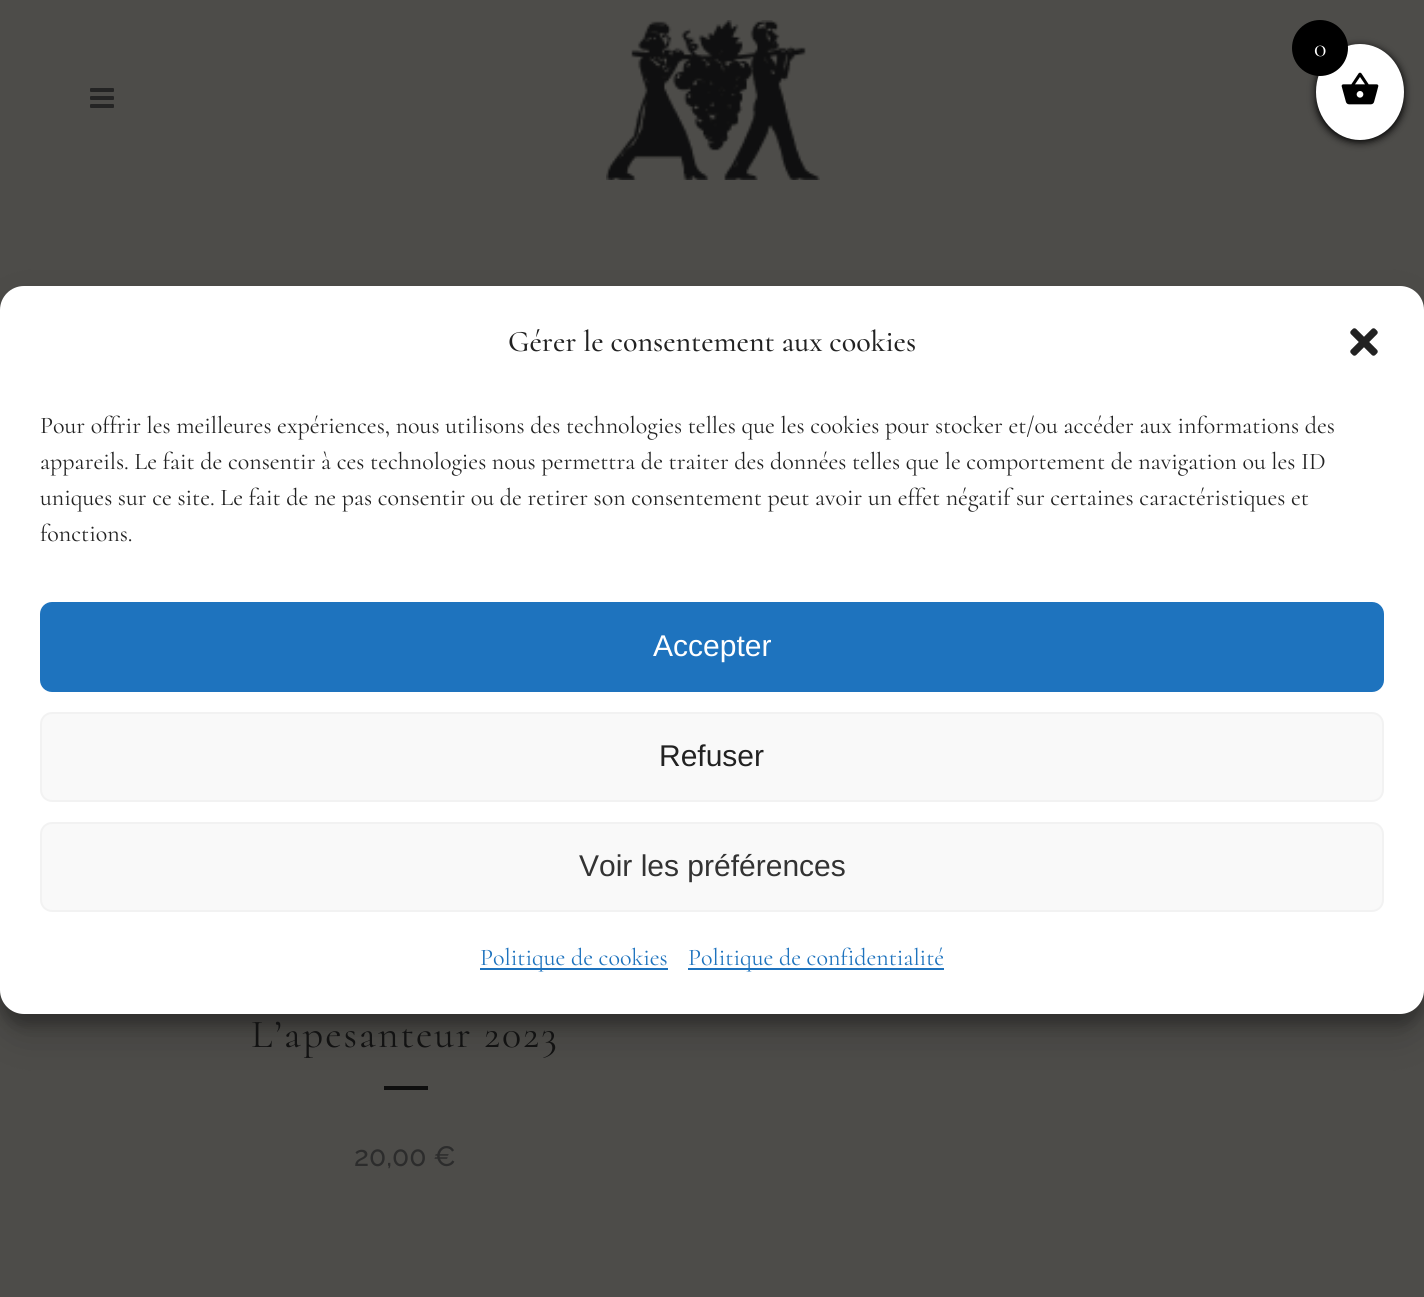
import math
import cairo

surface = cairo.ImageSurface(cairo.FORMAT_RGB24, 1424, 1297)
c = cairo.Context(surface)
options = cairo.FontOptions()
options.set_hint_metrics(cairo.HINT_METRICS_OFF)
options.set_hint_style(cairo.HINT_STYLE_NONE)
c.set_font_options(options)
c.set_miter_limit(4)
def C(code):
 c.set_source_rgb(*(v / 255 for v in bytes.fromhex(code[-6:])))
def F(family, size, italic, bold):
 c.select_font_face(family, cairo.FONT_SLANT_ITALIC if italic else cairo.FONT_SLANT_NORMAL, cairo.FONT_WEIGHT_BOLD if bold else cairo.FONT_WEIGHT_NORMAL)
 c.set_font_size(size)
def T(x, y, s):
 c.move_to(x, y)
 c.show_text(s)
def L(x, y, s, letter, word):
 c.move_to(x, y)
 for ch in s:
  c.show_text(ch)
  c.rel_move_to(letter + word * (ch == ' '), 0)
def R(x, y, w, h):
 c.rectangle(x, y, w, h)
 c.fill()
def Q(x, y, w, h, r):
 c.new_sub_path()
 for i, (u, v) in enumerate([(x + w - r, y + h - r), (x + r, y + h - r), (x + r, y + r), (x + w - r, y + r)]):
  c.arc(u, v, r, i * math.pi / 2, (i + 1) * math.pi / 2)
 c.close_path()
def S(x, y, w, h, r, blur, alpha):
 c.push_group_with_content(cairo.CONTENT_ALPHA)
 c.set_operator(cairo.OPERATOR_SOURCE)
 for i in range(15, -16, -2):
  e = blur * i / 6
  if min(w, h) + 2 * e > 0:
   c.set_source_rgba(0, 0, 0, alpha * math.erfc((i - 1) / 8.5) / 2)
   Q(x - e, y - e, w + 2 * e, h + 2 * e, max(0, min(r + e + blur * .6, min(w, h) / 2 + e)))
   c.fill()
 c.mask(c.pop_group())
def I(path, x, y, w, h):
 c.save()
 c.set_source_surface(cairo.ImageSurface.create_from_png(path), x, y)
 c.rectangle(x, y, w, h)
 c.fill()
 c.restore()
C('4d4c49')
c.paint()
C('000000')
S(1316,46,88,96,44,4,1)
C('ffffff')
c.new_path()
c.move_to(1360,44)
c.curve_to(1384.5,44,1404,65.5,1404,92)
c.curve_to(1404,118.5,1384.5,140,1360,140)
c.curve_to(1335.5,140,1316,118.5,1316,92)
c.curve_to(1316,65.5,1335.5,44,1360,44)
c.close_path()
c.fill()
C('000000')
c.arc(1320,48,28,0,2 * math.pi)
c.fill()
F('Cormorant',26,0,0)
C('ffffff')
T(1314,56,'0')
I('1.png',1341,72,38,33)
C('000000')
S(0,298,1424,728,24,6,.23)
C('0e0e0e')
R(384,1086,44,4)
C('000000')
S(0,306,1424,728,24,20,.19)
C('ffffff')
Q(0,286,1424,728,24)
c.fill()
F('Cormorant Medium',30,0,0)
C('222222')
T(508,351,'Gérer le consentement aux cookies')
I('2.png',1350,328,28,28)
F('Cormorant',24,0,0)
T(40,433,'Pour offrir les meilleures expériences, nous utilisons des technologies telles que les cookies pour stocker et/ou accéder aux informations des')
T(40,469,'appareils. Le fait de consentir à ces technologies nous permettra de traiter des données telles que le comportement de navigation ou les ID')
T(40,505,'uniques sur ce site. Le fait de ne pas consentir ou de retirer son consentement peut avoir un effet négatif sur certaines caractéristiques et')
T(40,541,'fonctions.')
C('1e73be')
Q(41,603,1342,88,11)
c.fill_preserve()
c.stroke()
F('Liberation Sans',30,0,0)
C('ffffff')
T(653,656,'Accepter')
C('f9f9f9')
Q(41,713,1342,88,11)
c.fill_preserve()
C('f2f2f2')
c.stroke()
C('222222')
T(659,766,'Refuser')
C('f9f9f9')
Q(41,823,1342,88,11)
c.fill_preserve()
C('f2f2f2')
c.stroke()
C('333333')
T(579,876,'Voir les préférences')
C('1e73be')
R(480,968,188,2)
F('Cormorant',24,0,0)
T(480,965,'Politique de cookies')
R(688,968,256,2)
T(688,965,'Politique de confidentialité')
I('3.png',90,88,24,20)
I('4.png',606,20,214,160)
F('Cormorant',40,0,0)
C('121212')
L(251,1047,'L’apesanteur 2023',2,0)
F('Raleway Medium',28,0,0)
C('2c2c2c')
T(354,1166,'20,00 €')
surface.write_to_png('o.png')
